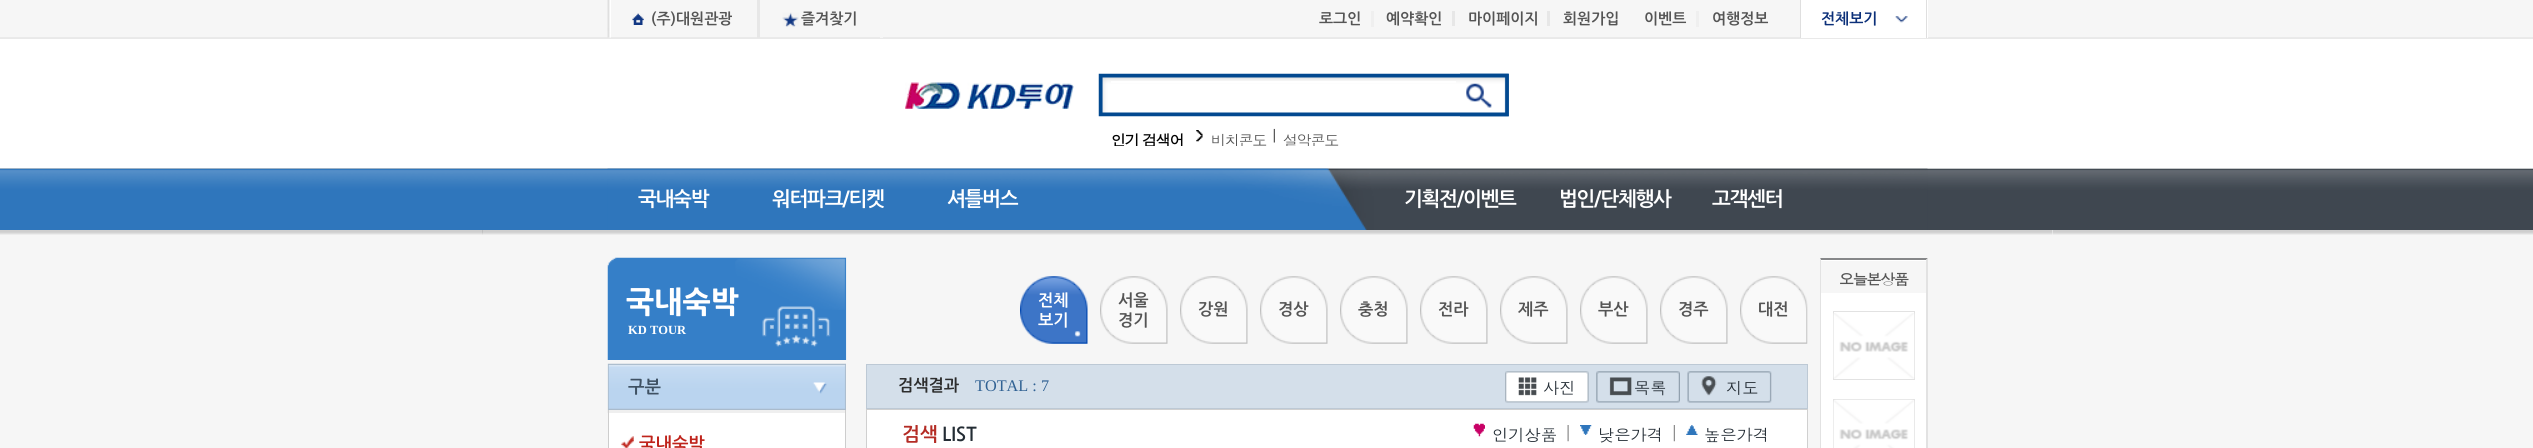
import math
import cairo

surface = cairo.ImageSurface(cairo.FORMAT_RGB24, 2533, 448)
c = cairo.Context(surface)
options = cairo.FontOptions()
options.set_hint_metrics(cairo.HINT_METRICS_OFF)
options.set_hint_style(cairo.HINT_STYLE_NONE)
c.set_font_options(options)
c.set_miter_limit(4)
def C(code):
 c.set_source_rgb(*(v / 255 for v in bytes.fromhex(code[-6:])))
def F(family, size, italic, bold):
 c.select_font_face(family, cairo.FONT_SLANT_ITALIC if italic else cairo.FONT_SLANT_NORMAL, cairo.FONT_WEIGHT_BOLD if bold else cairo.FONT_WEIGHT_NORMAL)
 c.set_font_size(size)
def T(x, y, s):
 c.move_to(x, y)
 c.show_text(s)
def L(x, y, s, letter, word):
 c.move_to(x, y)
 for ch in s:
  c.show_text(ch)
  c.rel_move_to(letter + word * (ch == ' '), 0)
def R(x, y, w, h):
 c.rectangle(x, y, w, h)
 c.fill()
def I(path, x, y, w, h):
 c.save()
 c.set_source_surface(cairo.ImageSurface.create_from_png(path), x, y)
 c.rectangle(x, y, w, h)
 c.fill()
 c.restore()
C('f6f6f6')
c.paint()
I('1.png',0,37,2533,193)
C('f5f5f5')
R(880,37,3,1)
I('2.png',607,0,4,38)
I('3.png',632,13,12,12)
F('NanumGothic',15,0,1)
C('555555')
T(651,24,'(주)대원관광')
C('e7e7e7')
R(757,0,3,38)
I('4.png',782,12,17,15)
C('555555')
T(801,24,'즐겨찾기')
C('efefef')
R(1371,11,3,16)
C('555555')
T(1319,24,'로그인')
C('e7e7e7')
R(1452,11,3,15)
C('555555')
T(1386,24,'예약확인')
C('e7e7e7')
R(1547,11,3,15)
C('555555')
T(1468,24,'마이페이지')
T(1563,24,'회원가입')
C('efefef')
R(1696,11,3,16)
C('555555')
T(1644,24,'이벤트')
T(1712,24,'여행정보')
C('ffffff')
R(1801,0,127,38)
I('5.png',1895,16,13,7)
C('dfdfdf')
R(1926,0,1,38)
R(1800,0,1,38)
C('0c3079')
T(1821,24,'전체보기')
I('6.png',905,82,169,27)
I('7.png',1098,73,411,44)
C('ffffff')
R(1111,81,345,2)
I('8.png',1460,73,49,44)
I('9.png',1196,130,7,12)
c.save()
c.rectangle(1111,129,398,17)
c.clip()
F('Dotum',15,0,1)
C('010101')
L(1111,146,'인기 검색어',-1.25,0)
c.restore()
I('10.png',1273,128,2,15)
c.save()
c.rectangle(1111,129,398,17)
c.clip()
F('Dotum',15,0,0)
C('555555')
L(1211,146,'비치콘도',-1.25,0)
L(1283,146,'설악콘도',-1.25,0)
c.restore()
I('12.png',0,168,1330,62)
I('11.png',607,168,1321,62)
F('NanumGothic',20,0,1)
L(638,206,'국내숙박',-1.25,0)
L(772,206,'워터파크/티켓',-1.25,0)
L(947,206,'셔틀버스',-1.25,0)
L(1404,206,'기획전/이벤트',-1.25,0)
L(1559,206,'법인/단체행사',-1.25,0)
L(1712,206,'고객센터',-1.25,0)
I('13.png',0,230,2533,5)
C('f6f6f6')
R(483,230,1570,5)
I('14.png',482,230,1571,5)
C('ffffff')
R(1821,293,105,155)
C('868789')
c.new_path()
c.move_to(1820,258)
c.line_to(1928,258)
c.line_to(1926,260)
c.line_to(1821,260)
c.close_path()
c.fill()
C('e2e2e2')
c.new_path()
c.move_to(1928,258)
c.line_to(1928,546)
c.line_to(1926,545)
c.line_to(1926,260)
c.close_path()
c.fill()
c.new_path()
c.move_to(1820,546)
c.line_to(1820,258)
c.line_to(1821,260)
c.line_to(1821,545)
c.close_path()
c.fill()
C('ffffff')
R(1821,260,105,1)
F('Dotum',15,0,1)
C('555555')
L(1839,285,'오늘본상품',-1.25,0)
c.rectangle(1833.5,311.5,81,68)
C('e2e2e2')
c.set_line_width(1)
c.stroke()
I('15.png',1833,313,82,66)
c.rectangle(1833.5,399.5,81,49)
c.stroke()
I('16.png',1833,399,82,49)
I('17.png',607,257,240,103)
F('NanumGothic ExtraBold',30,0,0)
C('ffffff')
T(626,313,'국내숙박')
F('Liberation Serif',12.5,0,1)
T(628,334,'KD TOUR')
I('18.png',607,363,239,47)
F('NanumGothic',17.5,0,1)
C('3f5163')
T(628,393,'구분')
C('ffffff')
R(609,413,236,35)
C('efefef')
R(607,410,239,3)
C('cdcdcd')
R(845,410,1,38)
R(608,410,1,38)
I('19.png',621,436,13,12)
C('bf241c')
T(639,450,'국내숙박')
I('20.png',1020,276,68,68)
F('NanumGothic',16.25,0,1)
C('ffffff')
T(1038,306,'전체')
T(1038,326,'보기')
I('21.png',1100,276,68,68)
C('555555')
T(1118,306,'서울')
T(1118,326,'경기')
I('22.png',1180,276,68,68)
T(1198,315,'강원')
I('23.png',1260,276,68,68)
T(1278,315,'경상')
I('22.png',1340,276,68,68)
T(1358,315,'충청')
I('22.png',1420,276,68,68)
T(1438,315,'전라')
I('22.png',1500,276,68,68)
T(1518,315,'제주')
I('22.png',1580,276,68,68)
T(1598,315,'부산')
I('22.png',1660,276,68,68)
T(1678,315,'경주')
I('24.png',1740,276,68,68)
T(1758,315,'대전')
C('d4dfea')
c.rectangle(866.5,364.5,941,44)
c.fill_preserve()
C('bdc9d5')
c.stroke()
C('2d2d2d')
T(898,391,'검색결과')
F('Liberation Serif',16.25,0,0)
C('306193')
T(975,391,'TOTAL : 7')
I('25.png',1505,371,84,32)
F('Dotum',16.25,0,0)
C('232c34')
T(1543,394,'사진')
I('26.png',1596,371,84,32)
T(1634,394,'목록')
I('27.png',1687,371,85,32)
T(1726,394,'지도')
C('ffffff')
c.rectangle(866.5,409.5,941,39)
c.fill_preserve()
C('d0d0d0')
c.stroke()
F('NanumGothic',19,0,1)
C('b42c25')
T(902,441,'검색')
C('232c34')
T(942,441,'LIST')
I('28.png',1567,425,2,17)
I('29.png',1473,423,12,14)
F('Dotum',16.25,0,0)
T(1492,441,'인기상품')
I('30.png',1673,425,2,17)
I('31.png',1580,425,12,10)
T(1598,441,'낮은가격')
I('32.png',1686,425,12,10)
T(1704,441,'높은가격')
surface.write_to_png('o.png')
